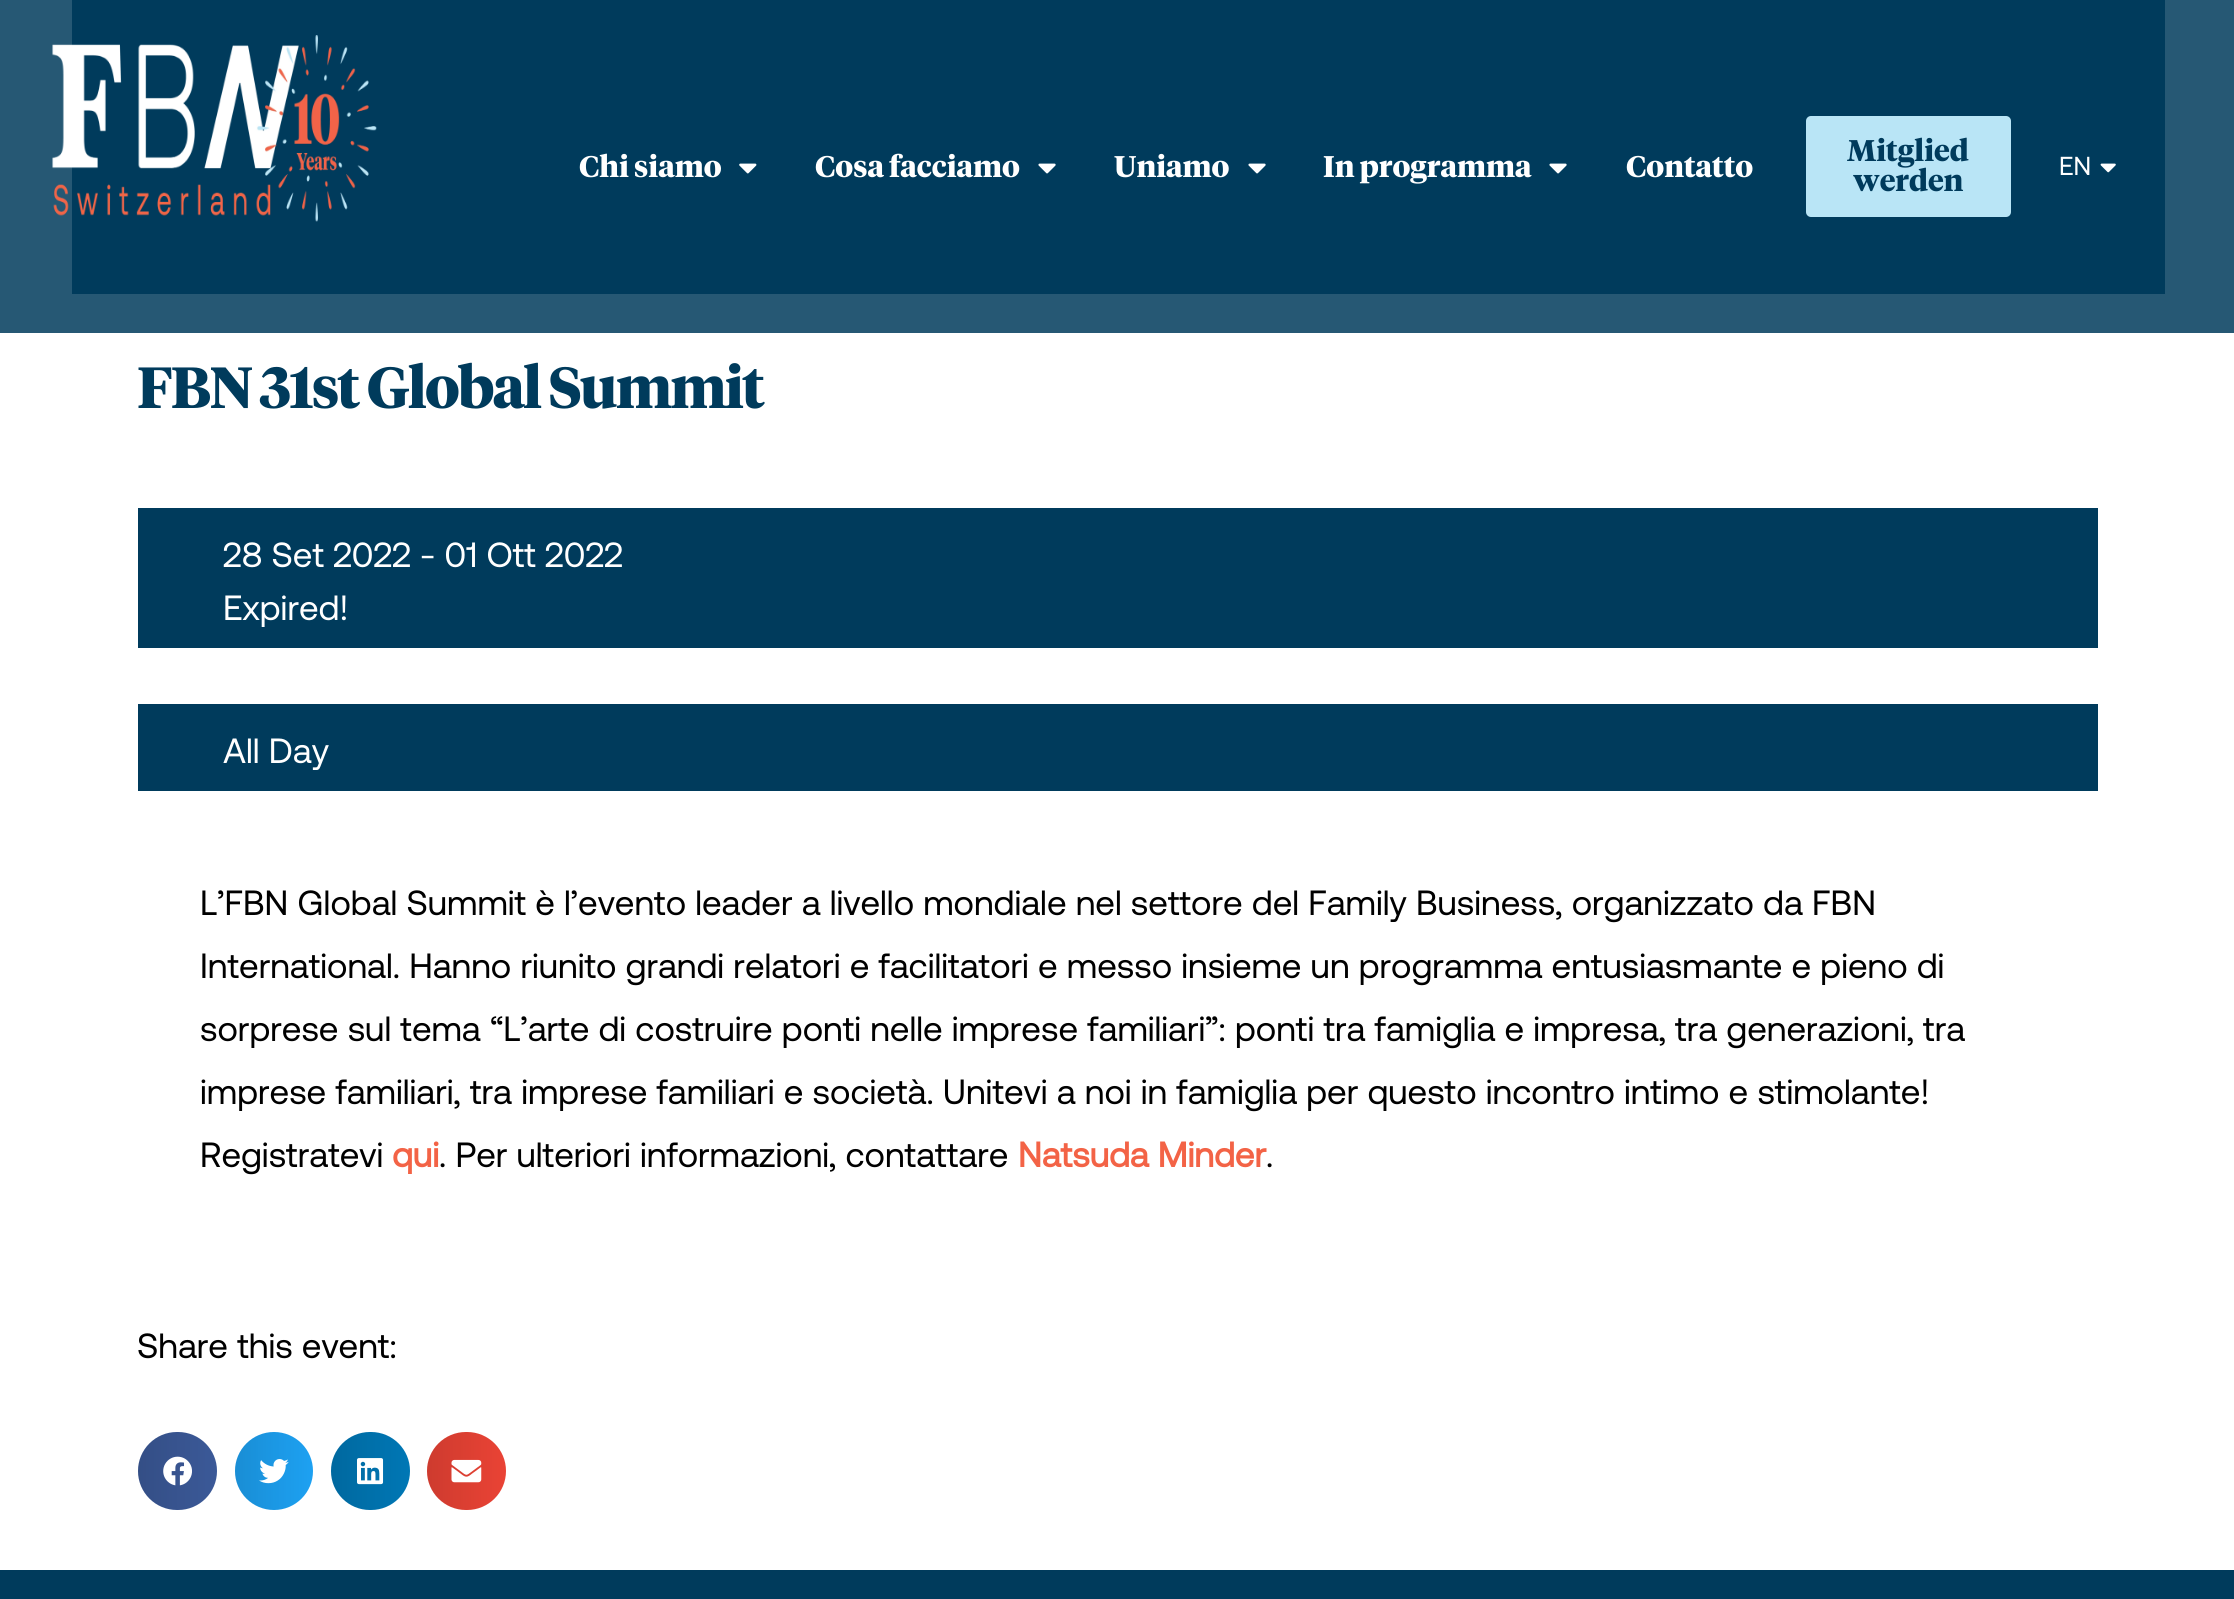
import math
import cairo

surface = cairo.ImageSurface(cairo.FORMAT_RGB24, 2234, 1599)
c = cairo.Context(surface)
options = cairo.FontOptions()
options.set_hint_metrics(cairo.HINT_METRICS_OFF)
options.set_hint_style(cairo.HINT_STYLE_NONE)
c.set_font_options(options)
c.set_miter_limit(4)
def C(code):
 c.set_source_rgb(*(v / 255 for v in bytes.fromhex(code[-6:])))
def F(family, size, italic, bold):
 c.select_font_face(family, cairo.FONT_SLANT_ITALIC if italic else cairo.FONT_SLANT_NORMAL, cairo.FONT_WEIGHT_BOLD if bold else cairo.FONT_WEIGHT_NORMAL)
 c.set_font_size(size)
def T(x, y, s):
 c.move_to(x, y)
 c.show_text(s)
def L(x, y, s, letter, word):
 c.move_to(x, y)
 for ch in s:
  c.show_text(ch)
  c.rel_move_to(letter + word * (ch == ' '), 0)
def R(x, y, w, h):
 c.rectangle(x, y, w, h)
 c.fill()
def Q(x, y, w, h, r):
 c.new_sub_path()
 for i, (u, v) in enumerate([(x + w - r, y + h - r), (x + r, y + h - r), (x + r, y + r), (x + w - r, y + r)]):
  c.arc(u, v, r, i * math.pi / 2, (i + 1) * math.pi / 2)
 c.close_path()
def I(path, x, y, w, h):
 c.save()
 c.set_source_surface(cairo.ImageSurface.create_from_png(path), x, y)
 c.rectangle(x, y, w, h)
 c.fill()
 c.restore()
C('ffffff')
c.paint()
C('265874')
R(0,0,2234,333)
C('003b5c')
R(72,0,2093,294)
I('1.png',52,35,325,187)
F('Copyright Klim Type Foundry',29.75,0,1)
C('ffffff')
T(579,177,'Chi siamo')
I('2.png',739,163,18,11)
T(815,177,'Cosa facciamo')
I('3.png',1038,163,18,11)
T(1114,177,'Uniamo')
I('3.png',1248,163,18,11)
T(1323,177,'In programma')
I('3.png',1549,163,18,11)
T(1626,177,'Contatto')
C('b9e5f6')
Q(1806,116,205,101,5)
c.fill()
C('003b5c')
T(1847,161,'Mitglied')
T(1853,191,'werden')
F('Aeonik',26,0,0)
C('ffffff')
T(2059,175,'EN')
I('4.png',2100,163,16,10)
F('Copyright Klim Type Foundry',57.75,0,1)
C('003b5c')
L(137,408,'FBN 31st Global Summit',-1.75,0)
R(138,508,1960,140)
F('Aeonik',35,0,0)
C('ffffff')
T(223,567,'28 Set 2022 - 01 Ott 2022')
T(223,620,'Expired!')
C('003b5c')
R(138,704,1960,87)
C('ffffff')
T(223,763,'All Day')
C('000000')
T(200,915,'L’FBN Global Summit è l’evento leader a livello mondiale nel settore del Family Business, organizzato da FBN')
T(200,978,'International. Hanno riunito grandi relatori e facilitatori e messo insieme un programma entusiasmante e pieno di')
T(200,1041,'sorprese sul tema “L’arte di costruire ponti nelle imprese familiari”: ponti tra famiglia e impresa, tra generazioni, tra')
T(200,1104,'imprese familiari, tra imprese familiari e società. Unitevi a noi in famiglia per questo incontro intimo e stimolante!')
T(200,1167,'Registratevi')
F('Aeonik',35,0,1)
C('f36346')
T(392,1167,'qui')
F('Aeonik',35,0,0)
C('000000')
T(439,1167,'. Per ulteriori informazioni, contattare')
F('Aeonik',35,0,1)
C('f36346')
T(1018,1167,'Natsuda Minder')
F('Aeonik',35,0,0)
C('000000')
T(1266,1167,'.')
T(137,1358,'Share this event:')
C('3b5998')
Q(138,1432,79,78,39)
c.fill()
gradient = cairo.LinearGradient(138,1471,217,1471)
gradient.add_color_stop_rgba(0,0,0,0,.12)
gradient.add_color_stop_rgba(1,0,0,0,0)
c.set_source(gradient)
Q(138,1432,79,78,39)
c.fill()
I('5.png',163,1456,29,30)
C('1da1f2')
c.arc(274,1471,39,0,2 * math.pi)
c.fill()
gradient = cairo.LinearGradient(235,1471,313,1471)
gradient.add_color_stop_rgba(0,0,0,0,.12)
gradient.add_color_stop_rgba(1,0,0,0,0)
c.set_source(gradient)
c.arc(274,1471,39,0,2 * math.pi)
c.fill()
I('6.png',259,1459,30,25)
C('0077b5')
Q(331,1432,79,78,39)
c.fill()
gradient = cairo.LinearGradient(331,1471,410,1471)
gradient.add_color_stop_rgba(0,0,0,0,.12)
gradient.add_color_stop_rgba(1,0,0,0,0)
c.set_source(gradient)
Q(331,1432,79,78,39)
c.fill()
I('7.png',357,1458,27,27)
C('ea4335')
Q(427,1432,79,78,39)
c.fill()
gradient = cairo.LinearGradient(427,1471,506,1471)
gradient.add_color_stop_rgba(0,0,0,0,.12)
gradient.add_color_stop_rgba(1,0,0,0,0)
c.set_source(gradient)
Q(427,1432,79,78,39)
c.fill()
I('8.png',451,1459,31,24)
C('003b5c')
R(0,1570,2234,29)
surface.write_to_png('o.png')
